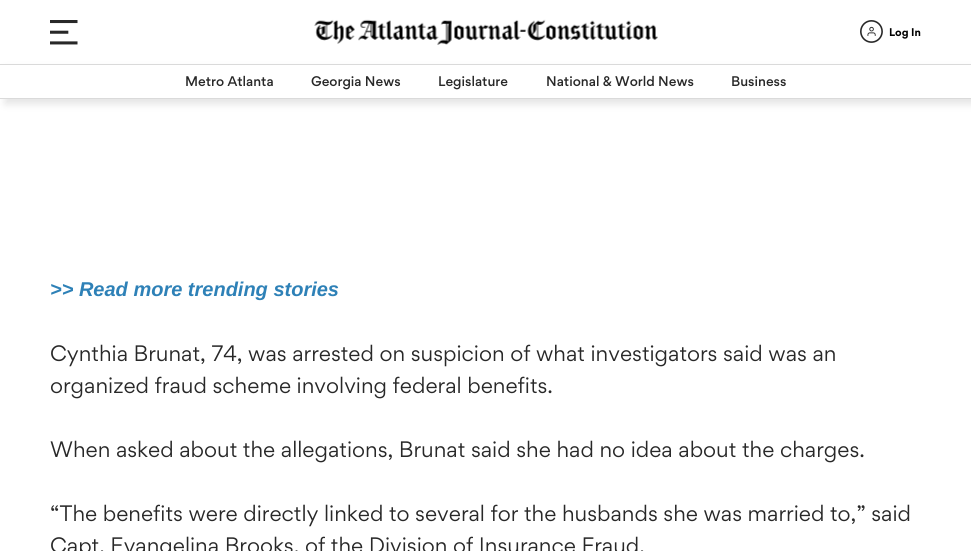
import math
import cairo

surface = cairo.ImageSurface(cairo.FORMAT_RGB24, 971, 551)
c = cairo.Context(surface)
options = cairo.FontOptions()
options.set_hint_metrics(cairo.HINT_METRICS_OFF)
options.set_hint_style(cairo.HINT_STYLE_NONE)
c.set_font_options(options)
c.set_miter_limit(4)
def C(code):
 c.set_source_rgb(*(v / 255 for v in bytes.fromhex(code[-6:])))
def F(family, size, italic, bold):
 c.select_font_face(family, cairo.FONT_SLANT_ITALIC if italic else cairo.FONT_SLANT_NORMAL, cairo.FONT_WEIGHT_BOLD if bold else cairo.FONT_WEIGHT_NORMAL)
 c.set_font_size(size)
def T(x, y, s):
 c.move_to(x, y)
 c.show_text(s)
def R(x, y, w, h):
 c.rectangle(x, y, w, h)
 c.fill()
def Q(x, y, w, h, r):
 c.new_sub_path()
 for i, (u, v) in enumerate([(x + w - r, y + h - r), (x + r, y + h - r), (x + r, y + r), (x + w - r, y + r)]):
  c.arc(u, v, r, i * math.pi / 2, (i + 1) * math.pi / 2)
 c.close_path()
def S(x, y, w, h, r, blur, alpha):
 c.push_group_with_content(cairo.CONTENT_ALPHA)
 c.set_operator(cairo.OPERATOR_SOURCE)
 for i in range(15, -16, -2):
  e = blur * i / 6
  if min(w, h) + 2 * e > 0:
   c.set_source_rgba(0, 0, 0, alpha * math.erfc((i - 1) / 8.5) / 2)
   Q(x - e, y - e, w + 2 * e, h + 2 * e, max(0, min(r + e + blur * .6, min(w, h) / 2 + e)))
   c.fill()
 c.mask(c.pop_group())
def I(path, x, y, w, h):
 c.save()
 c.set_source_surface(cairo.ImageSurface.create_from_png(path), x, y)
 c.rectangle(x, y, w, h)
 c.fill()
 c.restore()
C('ffffff')
c.paint()
I('1.png',50,20,28,25)
I('2.png',314,19,344,26)
I('3.png',860,20,23,23)
F('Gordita',10,0,1)
C('000000')
T(889,36,'Log In')
C('858585')
S(5,69,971,35,0,4,.22)
C('ffffff')
R(0,65,971,33)
C('dadada')
R(0,64,971,1)
R(0,98,971,1)
F('Gordita Medium',12.5,0,0)
C('282828')
T(185,86,'Metro Atlanta')
T(311,86,'Georgia News')
T(438,86,'Legislature')
T(546,86,'National & World News')
T(731,86,'Business')
F('Liberation Sans',20,1,1)
C('2e81b7')
T(50,296,'>> Read more trending stories')
F('Gordita',20,0,0)
C('282828')
T(50,361,'Cynthia Brunat, 74, was arrested on suspicion of what investigators said was an')
T(50,393,'organized fraud scheme involving federal benefits.')
T(50,457,'When asked about the allegations, Brunat said she had no idea about the charges.')
T(50,521,'“The benefits were directly linked to several for the husbands she was married to,” said')
T(50,553,'Capt. Evangelina Brooks, of the Division of Insurance Fraud.')
surface.write_to_png('o.png')
